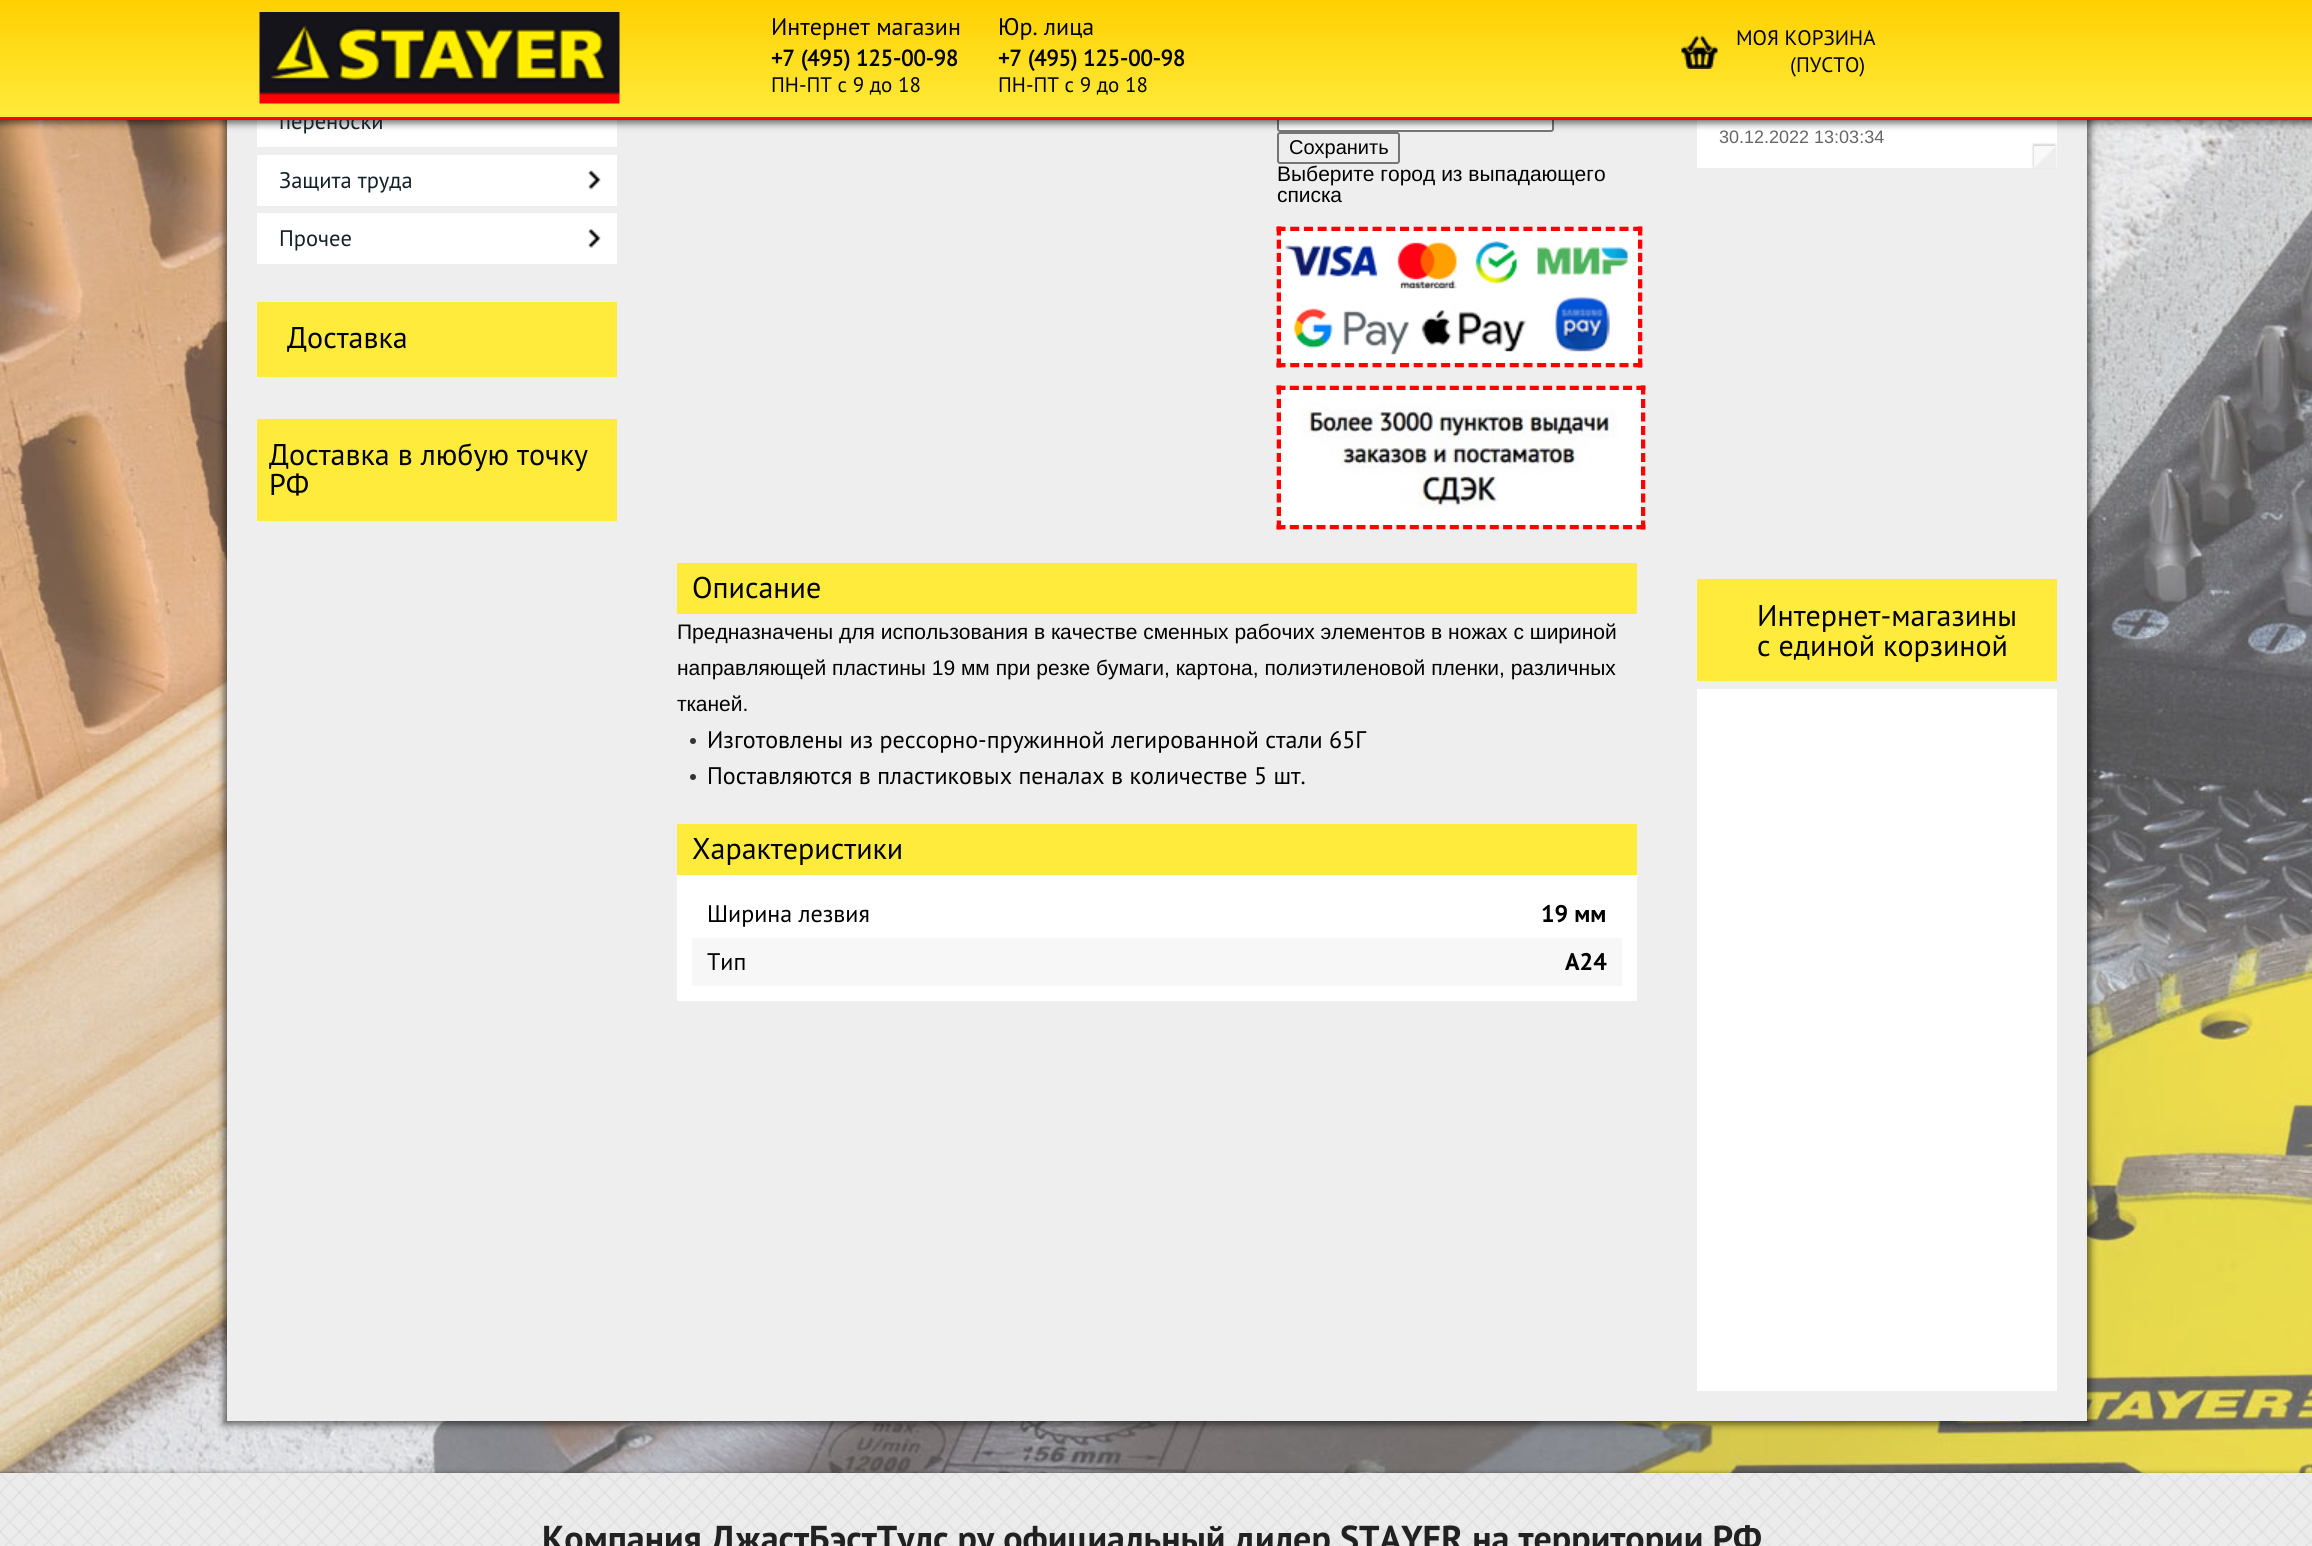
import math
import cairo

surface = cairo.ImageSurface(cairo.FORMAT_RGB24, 2312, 1546)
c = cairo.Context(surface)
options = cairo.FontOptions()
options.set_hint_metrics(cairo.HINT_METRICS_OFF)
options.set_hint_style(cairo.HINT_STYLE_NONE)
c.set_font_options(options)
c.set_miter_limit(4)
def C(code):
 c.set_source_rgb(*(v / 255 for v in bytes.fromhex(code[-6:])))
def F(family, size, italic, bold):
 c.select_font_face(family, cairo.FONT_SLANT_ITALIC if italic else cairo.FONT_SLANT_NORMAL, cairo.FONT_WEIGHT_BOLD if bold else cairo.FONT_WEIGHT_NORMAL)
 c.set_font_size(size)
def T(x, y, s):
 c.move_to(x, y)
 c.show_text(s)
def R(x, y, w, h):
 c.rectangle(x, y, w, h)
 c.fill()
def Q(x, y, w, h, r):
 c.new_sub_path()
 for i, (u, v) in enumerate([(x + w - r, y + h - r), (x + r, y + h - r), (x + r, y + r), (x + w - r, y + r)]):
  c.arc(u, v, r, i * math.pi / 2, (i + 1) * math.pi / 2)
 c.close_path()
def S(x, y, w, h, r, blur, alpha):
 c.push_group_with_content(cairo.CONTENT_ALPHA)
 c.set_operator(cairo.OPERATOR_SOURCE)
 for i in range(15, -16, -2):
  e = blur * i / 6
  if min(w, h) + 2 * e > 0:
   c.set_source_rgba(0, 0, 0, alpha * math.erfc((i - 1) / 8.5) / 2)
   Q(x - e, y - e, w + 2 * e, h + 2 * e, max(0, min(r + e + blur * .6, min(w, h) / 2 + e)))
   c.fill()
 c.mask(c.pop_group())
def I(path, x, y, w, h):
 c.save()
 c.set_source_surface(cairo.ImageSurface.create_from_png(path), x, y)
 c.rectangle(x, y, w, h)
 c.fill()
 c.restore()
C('ffffff')
c.paint()
I('7.png',0,120,2312,1353)
C('000000')
S(224,-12,1866,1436,0,4,.6)
C('eeeeee')
R(227,120,1860,1301)
C('ffffff')
R(257,120,360,27)
Q(1278,102,275,29,2)
c.fill_preserve()
C('767676')
c.stroke()
Q(1278,133,121,30,2)
c.stroke()
C('ffffff')
R(1697,120,360,48)
C('000000')
S(-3,-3,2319,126,0,4,.6)
gradient = cairo.LinearGradient(1157,0,1157,117)
gradient.add_color_stop_rgba(0,1,0.816,0.004,1)
gradient.add_color_stop_rgba(1,1,0.922,0.231,1)
c.set_source(gradient)
R(0,0,2312,117)
F('PT Sans',22.5,0,0)
C('132229')
T(279,129,'переноски')
C('ff0000')
R(0,117,2312,3)
I('1.png',259,12,361,92)
F('PT Sans',24,0,0)
C('000000')
T(771,35,'Интернет магазин')
F('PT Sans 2',22.5,0,1)
T(771,66,'+7 (495) 125-00-98')
F('PT Sans',21,0,0)
T(771,92,'ПН-ПТ с 9 до 18')
F('PT Sans',24,0,0)
T(998,35,'Юр. лица')
F('PT Sans 2',22.5,0,1)
T(998,66,'+7 (495) 125-00-98')
F('PT Sans',21,0,0)
T(998,92,'ПН-ПТ с 9 до 18')
I('2.png',1681,35,37,34)
T(1736,45,'МОЯ КОРЗИНА')
T(1790,72,'(ПУСТО)')
C('ffffff')
R(257,155,360,51)
F('PT Sans',22.5,0,0)
C('132229')
T(279,188,'Защита труда')
I('3.png',588,170,13,20)
C('ffffff')
R(257,213,360,51)
C('132229')
T(279,246,'Прочее')
I('4.png',588,229,13,19)
C('ffeb3b')
R(257,302,360,75)
F('PT Sans',30,0,0)
C('000000')
T(287,348,'Доставка')
C('ffeb3b')
R(257,419,360,102)
C('000000')
T(269,465,'Доставка в любую точку')
T(269,495,'РФ')
F('Liberation Sans',20,0,0)
T(1289,154,'Сохранить')
F('Liberation Sans',21,0,0)
T(1277,181,'Выберите город из выпадающего')
T(1277,202,'списка')
c.new_path()
c.move_to(1276.5,229)
c.line_to(1642.5,229)
C('ff0000')
c.set_line_width(4.5)
c.set_dash([9,4.72])
c.stroke()
c.new_path()
c.move_to(1640,226.5)
c.line_to(1640,367.5)
c.set_dash([9,4.2])
c.stroke()
c.new_path()
c.move_to(1276.5,365)
c.line_to(1642.5,365)
c.set_dash([9,4.72])
c.stroke()
c.new_path()
c.move_to(1279,226.5)
c.line_to(1279,367.5)
c.set_dash([9,4.2])
c.stroke()
I('5.png',1281,231,357,132)
c.new_path()
c.move_to(1276.5,388)
c.line_to(1645.5,388)
c.set_dash([9,4.33])
c.stroke()
c.new_path()
c.move_to(1643,385.5)
c.line_to(1643,529.5)
c.set_dash([9,4.5])
c.stroke()
c.new_path()
c.move_to(1276.5,527)
c.line_to(1645.5,527)
c.set_dash([9,4.33])
c.stroke()
c.new_path()
c.move_to(1279,385.5)
c.line_to(1279,529.5)
c.set_dash([9,4.5])
c.stroke()
I('6.png',1281,390,360,135)
C('ffeb3b')
R(677,563,960,51)
F('PT Sans',30,0,0)
C('000000')
T(692,598,'Описание')
F('Liberation Sans',21,0,0)
T(677,639,'Предназначены для использования в качестве сменных рабочих элементов в ножах с шириной')
T(677,675,'направляющей пластины 19 мм при резке бумаги, картона, полиэтиленовой пленки, различных')
T(677,711,'тканей.')
C('333333')
c.new_path()
c.arc(693,741,3,0,2 * math.pi)
c.fill()
F('PT Sans',24,0,0)
C('000000')
T(707,748,'Изготовлены из рессорно-пружинной легированной стали 65Г')
C('333333')
c.new_path()
c.arc(693,777,3,0,2 * math.pi)
c.fill()
C('000000')
T(707,784,'Поставляются в пластиковых пеналах в количестве 5 шт.')
C('ffeb3b')
R(677,824,960,51)
F('PT Sans',30,0,0)
C('000000')
T(692,859,'Характеристики')
C('ffffff')
R(677,875,960,126)
F('PT Sans',24,0,0)
C('000000')
T(707,922,'Ширина лезвия')
F('PT Sans',24,0,1)
T(1541,922,'19 мм')
C('f7f7f7')
R(692,938,930,48)
F('PT Sans',24,0,0)
C('000000')
T(707,970,'Тип')
F('PT Sans',24,0,1)
T(1565,970,'А24')
F('Liberation Sans',18,0,0)
C('666666')
T(1719,143,'30.12.2022 13:03:34')
c.save()
c.set_fill_rule(cairo.FILL_RULE_EVEN_ODD)
c.new_path()
c.move_to(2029,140)
c.line_to(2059,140)
c.line_to(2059,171)
c.line_to(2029,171)
c.close_path()
c.move_to(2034,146)
c.line_to(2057,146)
c.line_to(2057,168)
c.line_to(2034,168)
c.close_path()
c.clip()
C('333333')
S(2033,144,22,23,0,1,.2)
c.restore()
C('eeeeee')
c.new_path()
c.move_to(2056.5,168)
c.line_to(2034,168)
c.line_to(2056.5,145.5)
c.close_path()
c.fill()
c.set_source_rgba(0.533,0.533,0.533,0.05)
c.new_path()
c.move_to(2034,168)
c.line_to(2034,145.5)
c.line_to(2056.5,145.5)
c.close_path()
c.fill()
C('ffeb3b')
R(1697,579,360,102)
F('PT Sans',30,0,0)
C('000000')
T(1757,626,'Интернет-магазины')
T(1757,656,'с единой корзиной')
C('ffffff')
R(1697,689,360,702)
C('000000')
S(0,1475,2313,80,0,3,.75)
I('8.png',0,1473,2312,73)
F('PT Sans',36,0,1)
C('212121')
T(542,1551,'Компания ДжастБэстТулс.ру официальный дилер STAYER на территории РФ')
surface.write_to_png('o.png')
